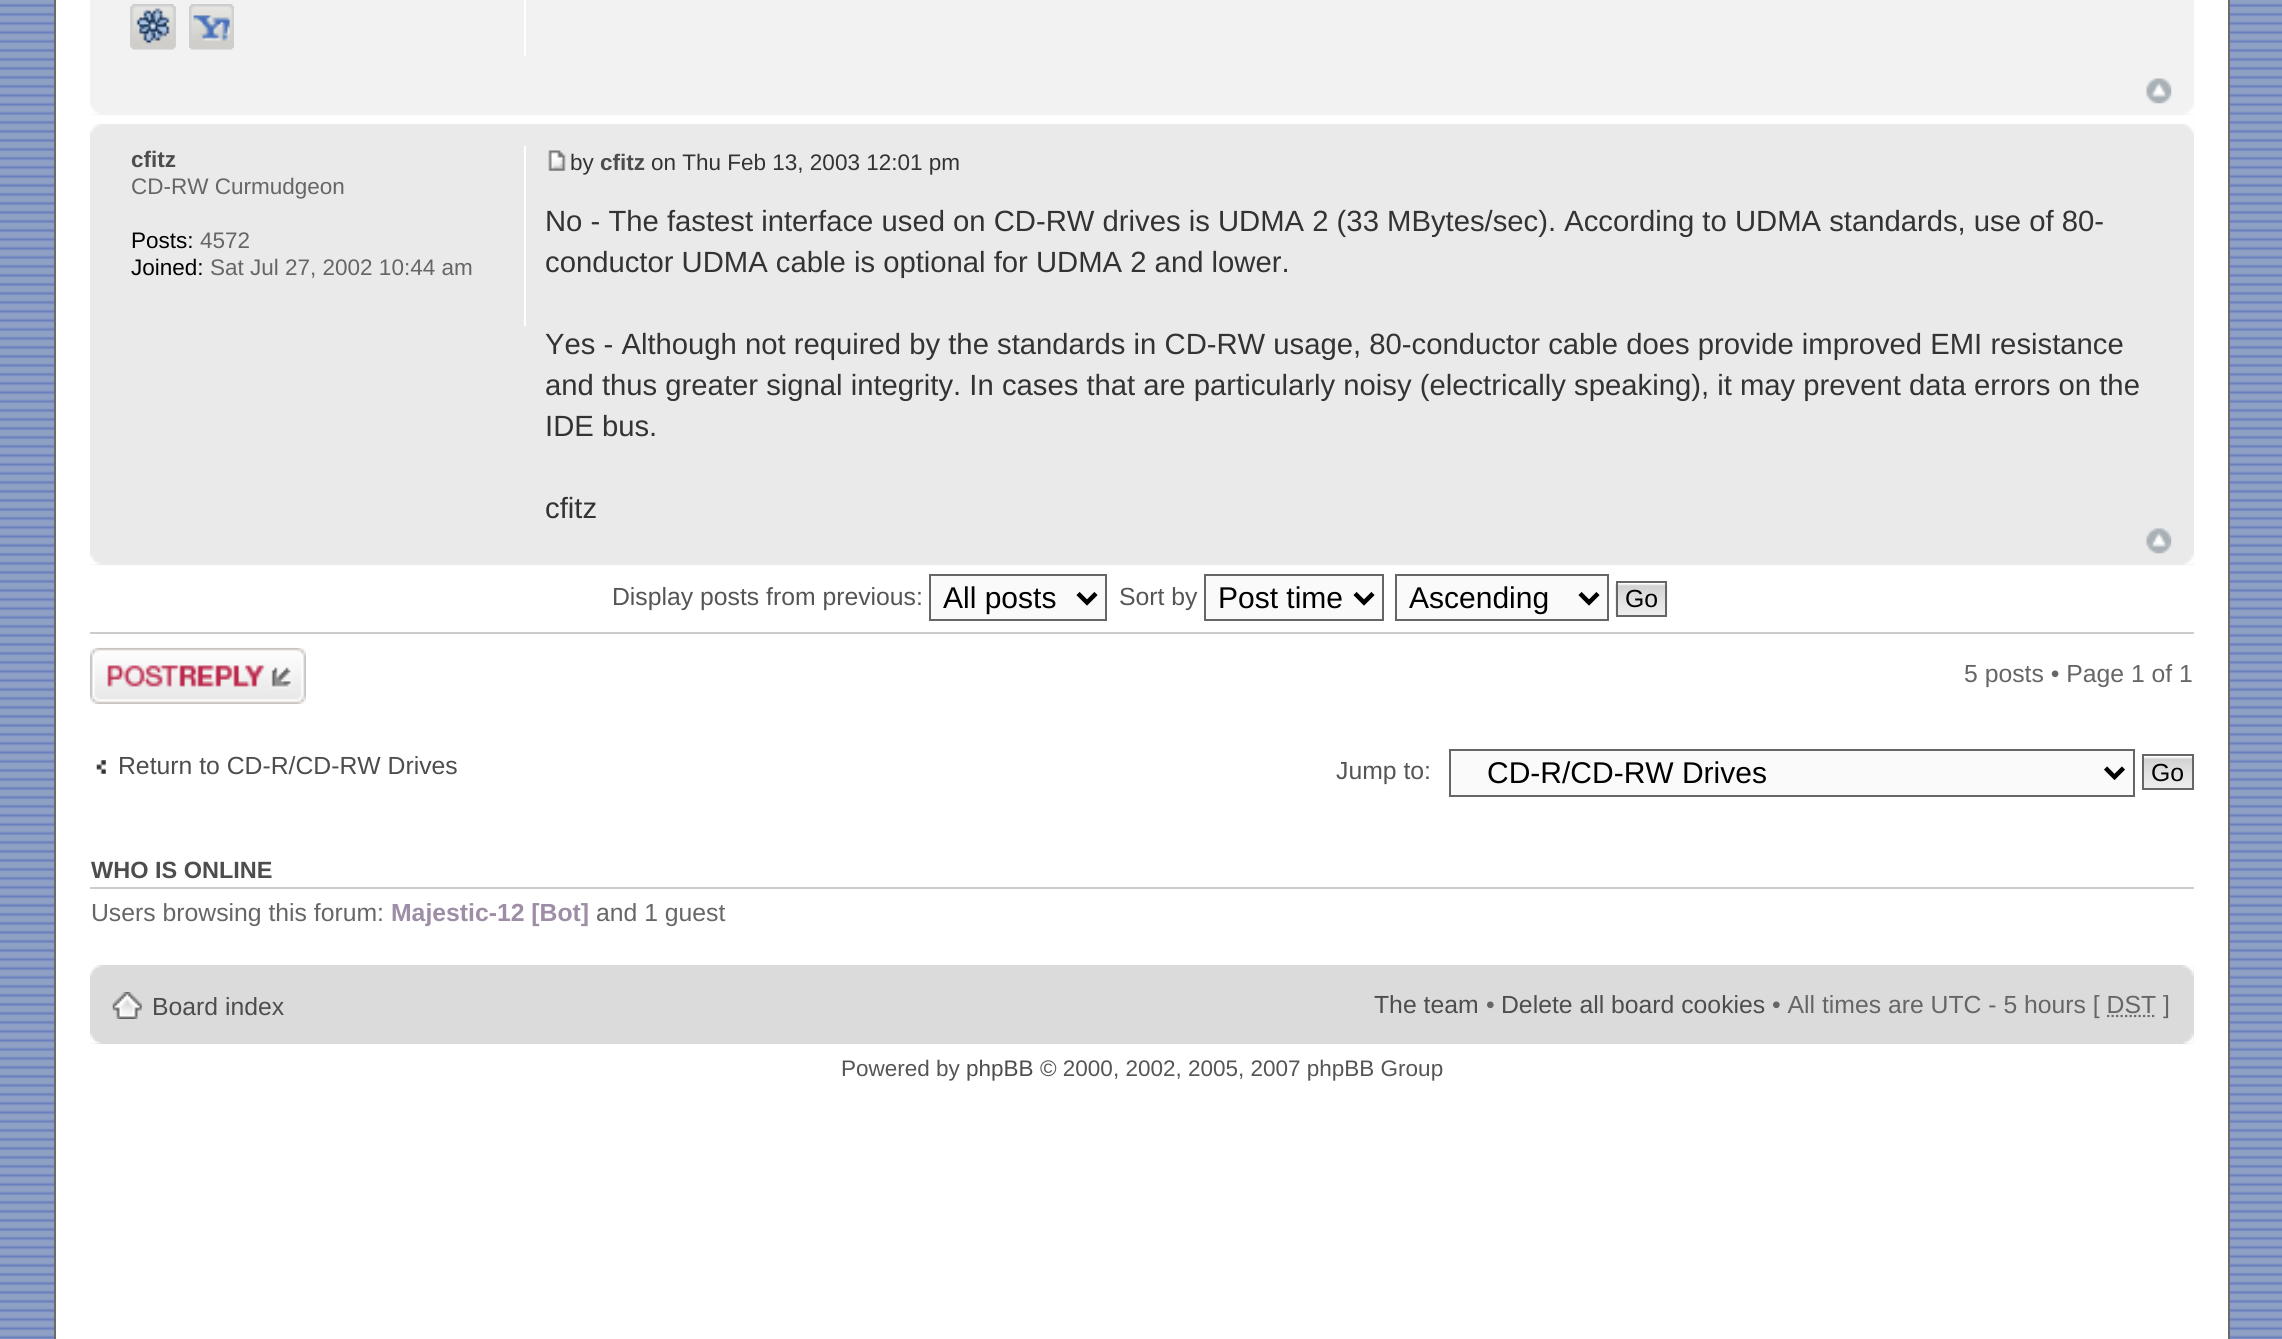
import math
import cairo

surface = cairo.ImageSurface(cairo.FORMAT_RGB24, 2282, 1339)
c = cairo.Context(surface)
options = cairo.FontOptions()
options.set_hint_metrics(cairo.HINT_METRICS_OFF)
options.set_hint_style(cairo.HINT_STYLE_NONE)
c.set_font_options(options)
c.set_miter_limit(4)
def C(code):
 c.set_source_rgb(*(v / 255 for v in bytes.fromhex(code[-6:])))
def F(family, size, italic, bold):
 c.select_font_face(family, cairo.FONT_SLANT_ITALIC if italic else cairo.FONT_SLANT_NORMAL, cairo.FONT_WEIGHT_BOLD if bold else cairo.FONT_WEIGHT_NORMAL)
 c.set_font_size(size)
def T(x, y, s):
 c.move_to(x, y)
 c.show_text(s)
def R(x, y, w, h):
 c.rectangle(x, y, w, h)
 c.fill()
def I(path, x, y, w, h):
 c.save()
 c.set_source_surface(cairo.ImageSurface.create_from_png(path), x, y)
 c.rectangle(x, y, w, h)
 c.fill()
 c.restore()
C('ffffff')
c.paint()
I('1.png',0,0,2282,1339)
C('ffffff')
c.rectangle(55,-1,2174,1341)
c.fill_preserve()
C('6b6b6b')
c.stroke()
C('f2f2f2')
R(90,0,2104,115)
C('ffffff')
R(524,0,2,56)
I('2.png',130,4,46,46)
I('3.png',130,4,46,46)
I('4.png',189,4,45,46)
I('5.png',189,4,45,46)
I('6.png',2146,78,26,26)
I('7.png',90,105,10,10)
I('8.png',2184,105,10,10)
C('eaeaea')
R(90,124,2104,441)
I('9.png',90,124,11,10)
I('10.png',2183,124,11,10)
C('ffffff')
R(524,146,2,180)
F('Liberation Sans',22.5,0,1)
C('4d4d4d')
T(131,167,'cfitz')
F('Liberation Sans',22.5,0,0)
C('666666')
T(131,194,'CD-RW Curmudgeon')
C('000000')
T(131,248,'Posts:')
C('666666')
T(200,248,'4572')
C('000000')
T(131,275,'Joined:')
C('666666')
T(210,275,'Sat Jul 27, 2002 10:44 am')
I('11.png',548,150,18,21)
C('333333')
T(570,170,'by')
F('Liberation Sans',22.5,0,1)
C('4d4d4d')
T(600,170,'cfitz')
F('Liberation Sans',22.5,0,0)
C('333333')
T(651,170,'on Thu Feb 13, 2003 12:01 pm')
F('Liberation Sans',29.25,0,0)
T(545,231,'No - The fastest interface used on CD-RW drives is UDMA 2 (33 MBytes/sec). According to UDMA standards, use of 80-')
T(545,272,'conductor UDMA cable is optional for UDMA 2 and lower.')
T(545,354,'Yes - Although not required by the standards in CD-RW usage, 80-conductor cable does provide improved EMI resistance')
T(545,395,'and thus greater signal integrity. In cases that are particularly noisy (electrically speaking), it may prevent data errors on the')
T(545,436,'IDE bus.')
T(545,518,'cfitz')
I('12.png',2146,528,26,26)
I('13.png',90,554,11,11)
I('14.png',2183,554,11,11)
F('Liberation Sans',24.75,0,0)
C('555555')
T(612,605,'Display posts from previous:')
C('fafafa')
c.rectangle(930,575,176,45)
c.fill_preserve()
C('666666')
c.stroke()
c.new_path()
c.move_to(1078,593.5)
c.line_to(1087,602.5)
c.line_to(1096,593.5)
C('000000')
c.set_line_width(4.5)
c.stroke()
F('Liberation Sans',30,0,0)
T(943,608,'All posts')
F('Liberation Sans',24.75,0,0)
C('555555')
T(1119,605,'Sort by')
C('fafafa')
c.rectangle(1205,575,178,45)
c.fill_preserve()
C('666666')
c.set_line_width(2)
c.stroke()
c.new_path()
c.move_to(1355,593.5)
c.line_to(1364,602.5)
c.line_to(1373,593.5)
C('000000')
c.set_line_width(4.5)
c.stroke()
F('Liberation Sans',30,0,0)
T(1218,608,'Post time')
C('fafafa')
c.rectangle(1396,575,212,45)
c.fill_preserve()
C('666666')
c.set_line_width(2)
c.stroke()
c.new_path()
c.move_to(1580,593.5)
c.line_to(1589,602.5)
c.line_to(1598,593.5)
C('000000')
c.set_line_width(4.5)
c.stroke()
T(1409,608,'Ascending')
I('15.png',1615,583,53,33)
c.rectangle(1617,582,49,34)
C('666666')
c.set_line_width(2)
c.stroke()
F('Liberation Sans',24.75,0,0)
C('000000')
T(1625,607,'Go')
C('cccccc')
R(90,632,2104,2)
I('16.png',90,647,216,57)
C('666666')
T(1964,682,'5 posts • Page 1 of 1')
I('17.png',96,760,10,14)
C('4d4d4d')
T(118,774,'Return to CD-R/CD-RW Drives')
C('555555')
T(1336,779,'Jump to:')
C('fafafa')
c.rectangle(1450,750,684,46)
c.fill_preserve()
C('666666')
c.stroke()
c.new_path()
c.move_to(2105.5,768)
c.line_to(2114.5,777)
c.line_to(2123.5,768)
C('000000')
c.set_line_width(4.5)
c.stroke()
F('Liberation Sans',30,0,0)
T(1487,783,'CD-R/CD-RW Drives')
I('18.png',2144,756,48,32)
c.rectangle(2143,755,50,34)
C('666666')
c.set_line_width(2)
c.stroke()
F('Liberation Sans',24.75,0,0)
C('000000')
T(2151,781,'Go')
C('cccccc')
R(90,887,2104,2)
F('Liberation Sans',23.5,0,1)
C('4d4d4d')
T(91,878,'WHO IS ONLINE')
F('Liberation Sans',24.75,0,0)
C('666666')
T(91,921,'Users browsing this forum:')
F('Liberation Sans',24.75,0,1)
C('9e8da7')
T(391,921,'Majestic-12 [Bot]')
F('Liberation Sans',24.75,0,0)
C('666666')
T(596,921,'and 1 guest')
C('dbdbdb')
R(90,965,2104,79)
I('19.png',90,965,12,11)
I('20.png',2182,965,12,11)
I('21.png',112,992,30,27)
C('4d4d4d')
T(152,1015,'Board index')
T(1374,1013,'The team')
C('666666')
T(1486,1013,'•')
C('4d4d4d')
T(1501,1013,'Delete all board cookies')
C('666666')
T(1772,1013,'• All times are UTC - 5 hours [ DST ]')
c.new_path()
c.move_to(2107,1016)
c.line_to(2156.5,1016)
C('6b6b6b')
c.set_line_width(2.2)
c.set_dash([2.25,2.25])
c.stroke()
I('22.png',90,1033,11,11)
I('23.png',2183,1033,11,11)
F('Liberation Sans',22.5,0,0)
C('555555')
T(841,1076,'Powered by')
C('4d4d4d')
T(966,1076,'phpBB')
C('555555')
T(1040,1076,'© 2000, 2002, 2005, 2007 phpBB Group')
surface.write_to_png('o.png')
